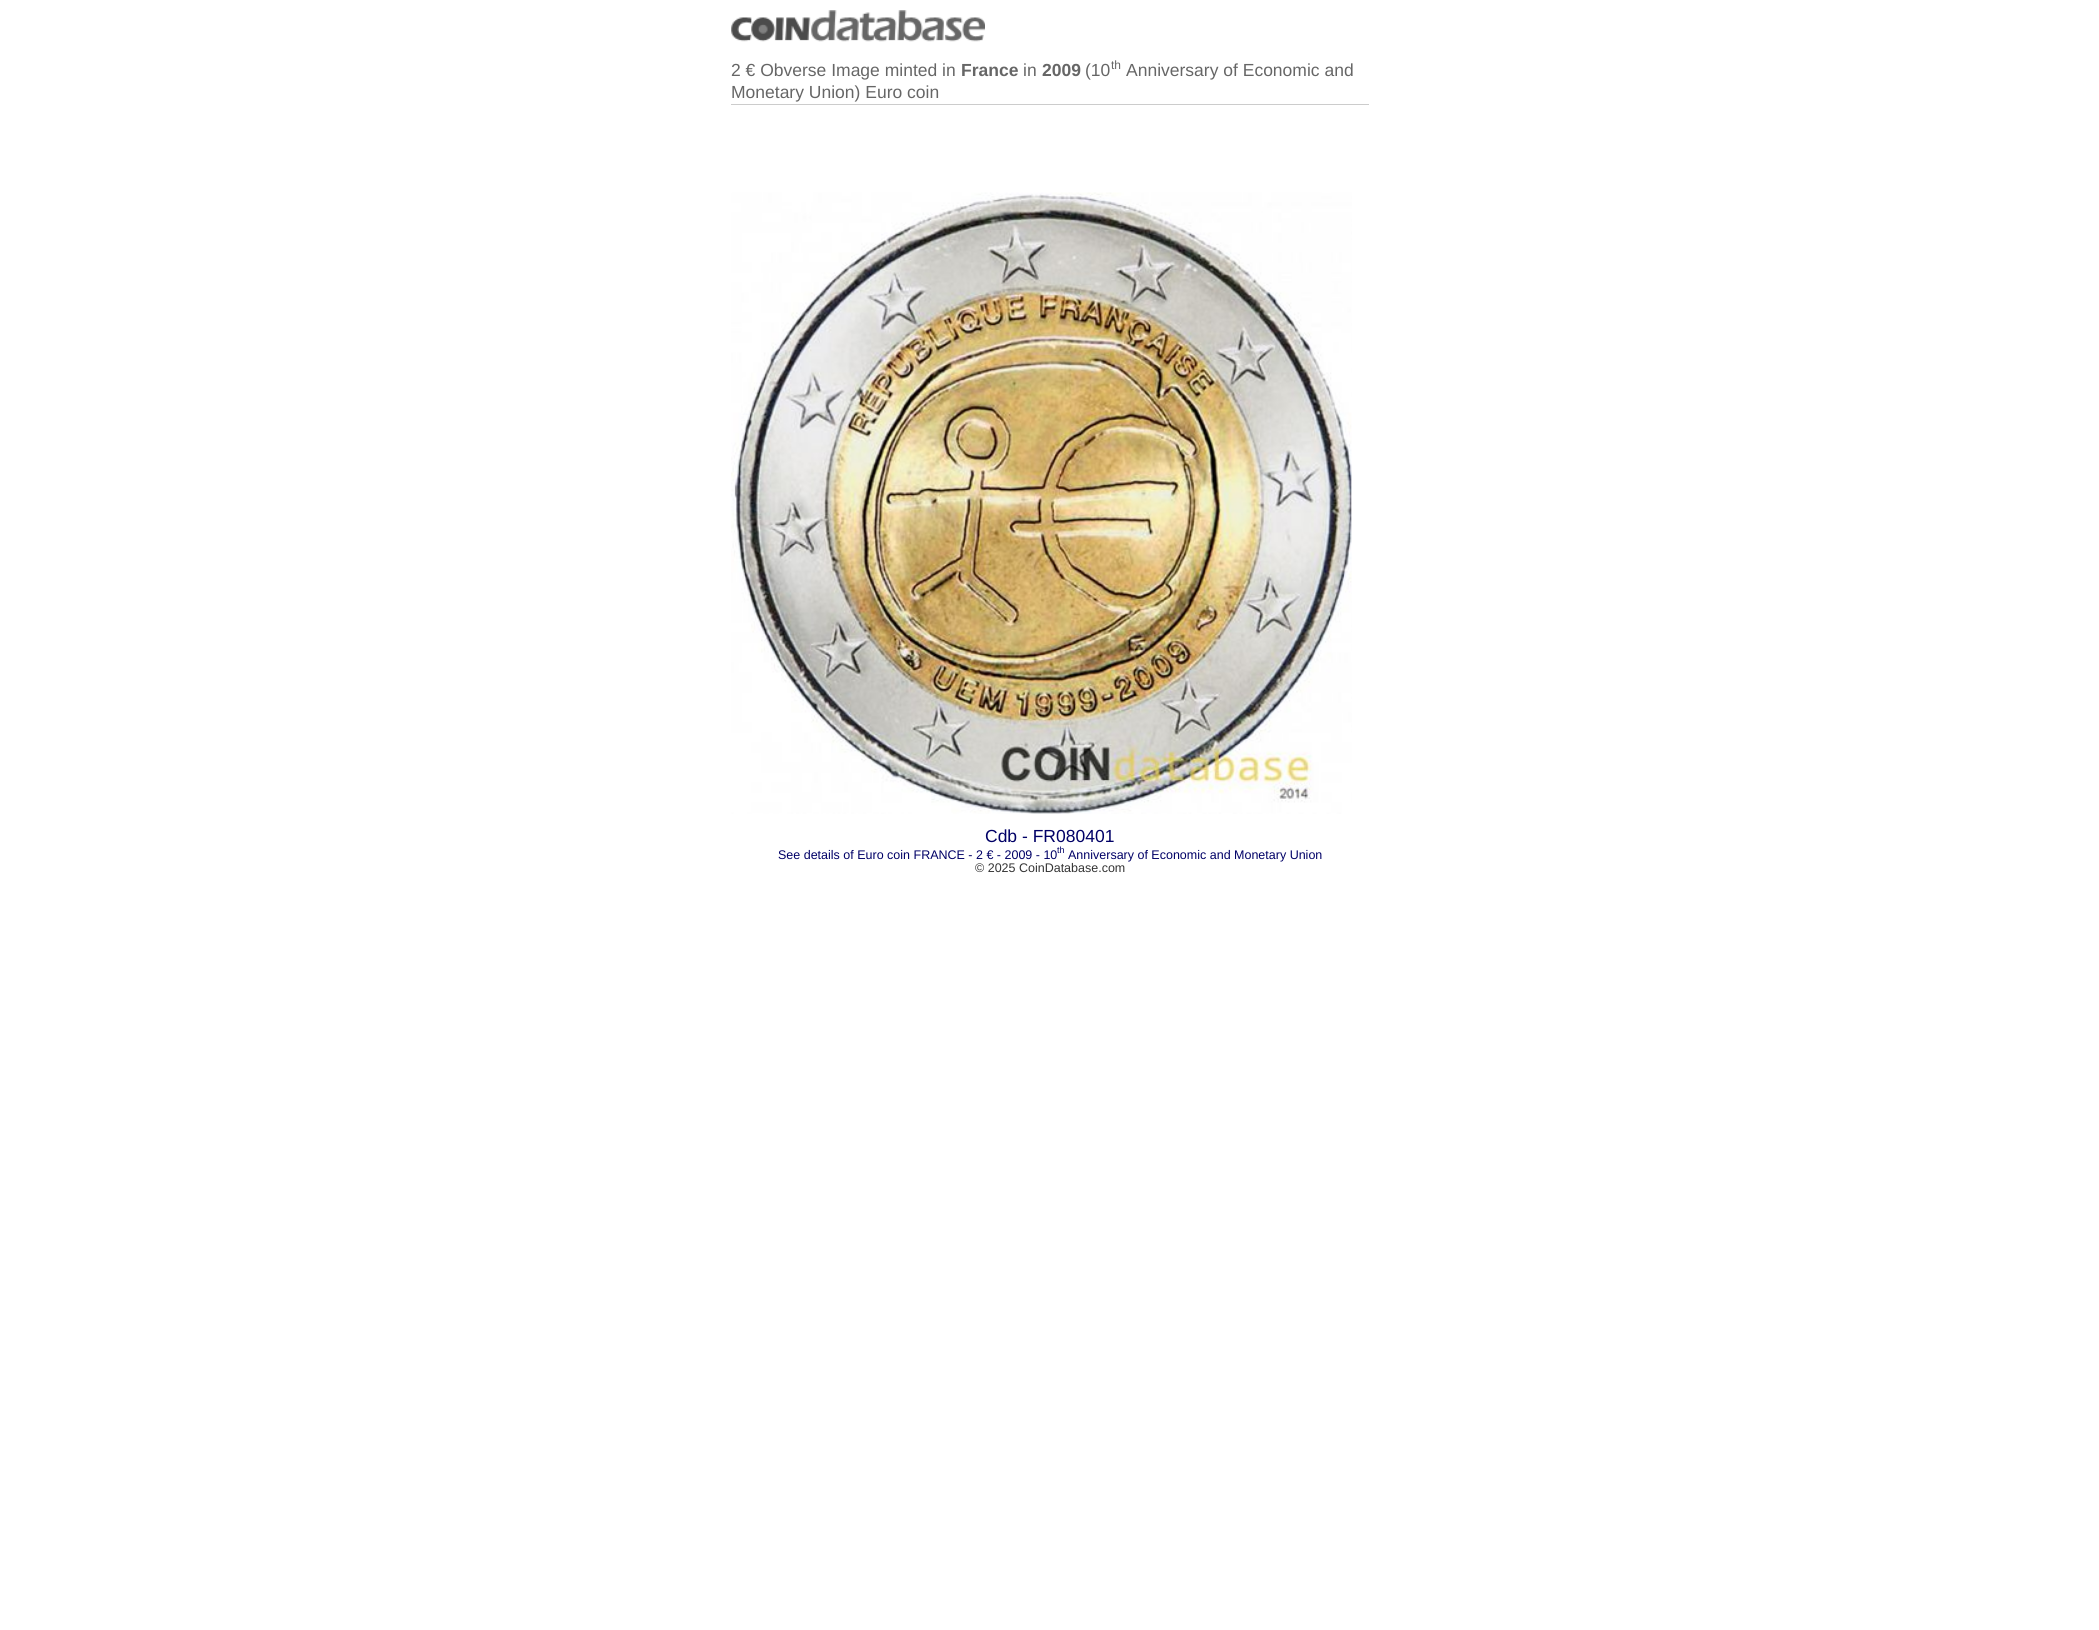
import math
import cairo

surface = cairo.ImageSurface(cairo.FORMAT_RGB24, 2099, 1630)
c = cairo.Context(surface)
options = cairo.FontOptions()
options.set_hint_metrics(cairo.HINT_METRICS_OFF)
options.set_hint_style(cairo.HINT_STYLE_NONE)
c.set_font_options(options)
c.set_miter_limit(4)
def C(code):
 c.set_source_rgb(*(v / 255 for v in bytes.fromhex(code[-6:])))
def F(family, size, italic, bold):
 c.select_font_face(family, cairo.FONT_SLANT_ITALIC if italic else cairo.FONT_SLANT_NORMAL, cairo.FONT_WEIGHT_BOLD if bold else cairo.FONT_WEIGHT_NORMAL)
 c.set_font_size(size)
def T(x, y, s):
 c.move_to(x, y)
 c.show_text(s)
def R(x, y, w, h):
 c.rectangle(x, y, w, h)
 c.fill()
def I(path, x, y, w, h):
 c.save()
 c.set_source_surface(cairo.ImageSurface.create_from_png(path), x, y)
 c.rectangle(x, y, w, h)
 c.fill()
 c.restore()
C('ffffff')
c.paint()
I('1.png',731,10,254,32)
C('cccccc')
R(731,104,638,1)
F('Liberation Sans',17.5,0,0)
C('666666')
T(731,76,'2 € Obverse Image minted in')
F('Liberation Sans',17.5,0,1)
T(961,76,'France')
F('Liberation Sans',17.5,0,0)
T(1023,76,'in')
F('Liberation Sans',17.5,0,1)
T(1042,76,'2009')
F('Liberation Sans',17.5,0,0)
T(1085,76,'(10')
F('Liberation Sans',12,0,0)
T(1111,69,'th')
F('Liberation Sans',17.5,0,0)
T(1126,76,'Anniversary of Economic and')
T(731,98,'Monetary Union) Euro coin')
I('2.png',731,192,621,622)
C('000066')
T(985,842,'Cdb - FR080401')
F('Liberation Sans',12.5,0,0)
T(778,859,'See details of Euro coin FRANCE - 2 € - 2009 - 10')
F('Liberation Sans',9,0,0)
T(1057,853,'th')
F('Liberation Sans',12.5,0,0)
T(1068,859,'Anniversary of Economic and Monetary Union')
C('333333')
T(975,872,'© 2025 CoinDatabase.com')
surface.write_to_png('o.png')
